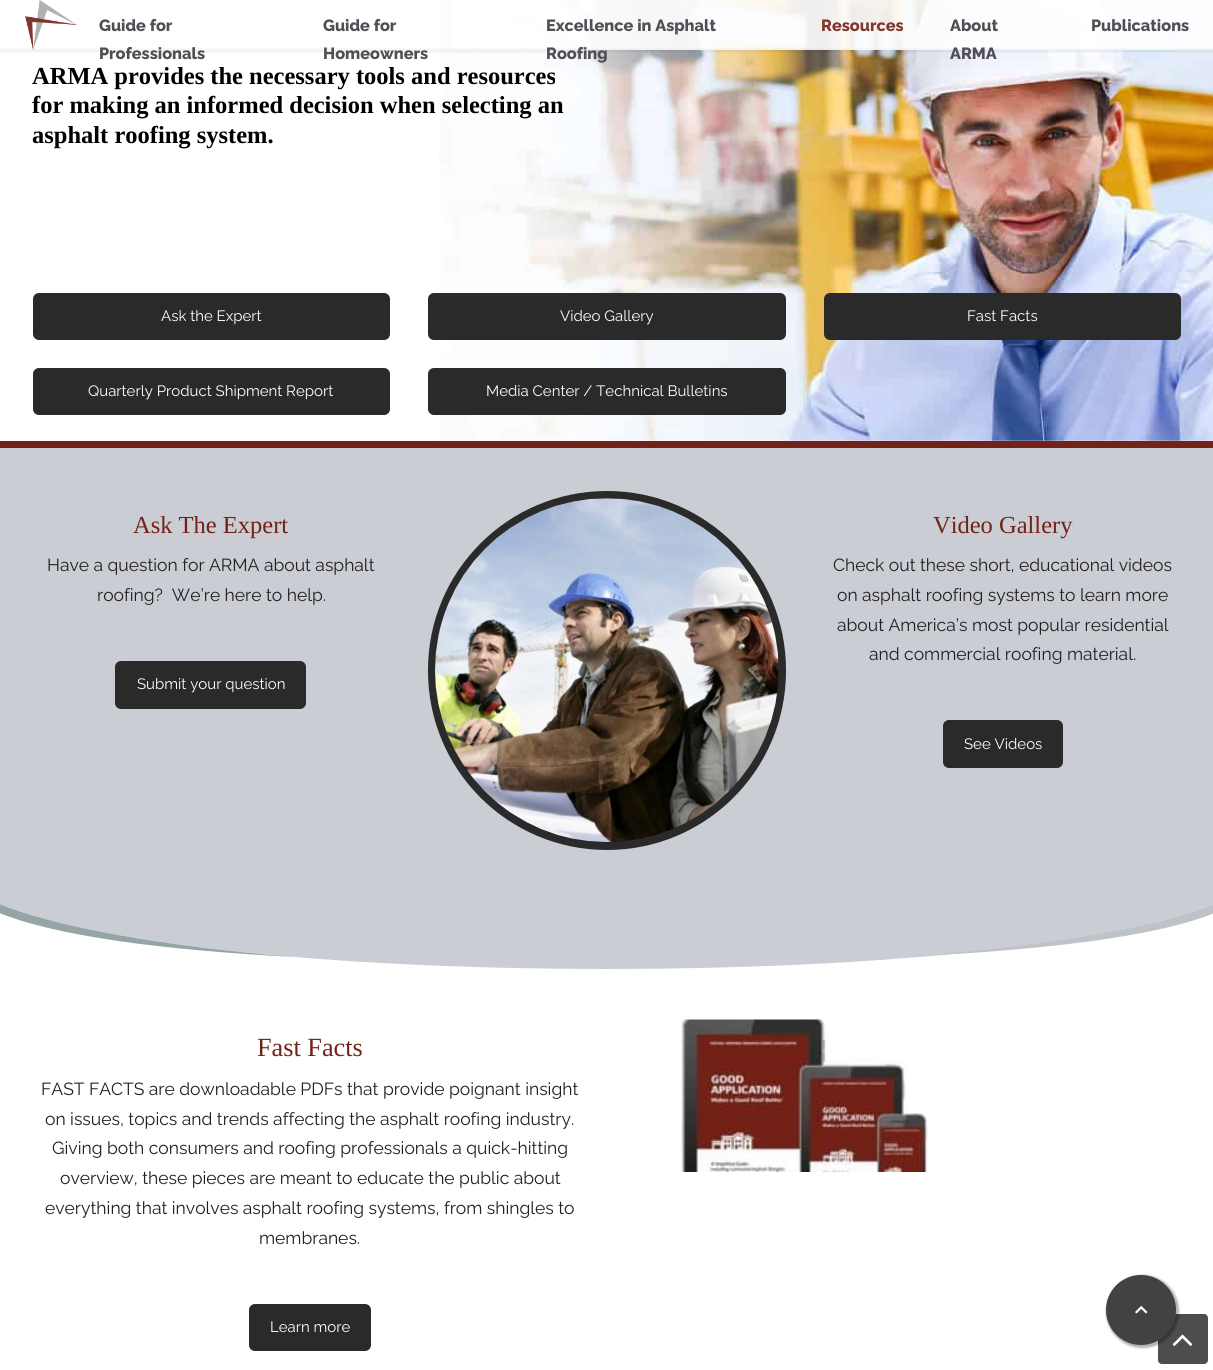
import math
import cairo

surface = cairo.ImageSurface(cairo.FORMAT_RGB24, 1213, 1370)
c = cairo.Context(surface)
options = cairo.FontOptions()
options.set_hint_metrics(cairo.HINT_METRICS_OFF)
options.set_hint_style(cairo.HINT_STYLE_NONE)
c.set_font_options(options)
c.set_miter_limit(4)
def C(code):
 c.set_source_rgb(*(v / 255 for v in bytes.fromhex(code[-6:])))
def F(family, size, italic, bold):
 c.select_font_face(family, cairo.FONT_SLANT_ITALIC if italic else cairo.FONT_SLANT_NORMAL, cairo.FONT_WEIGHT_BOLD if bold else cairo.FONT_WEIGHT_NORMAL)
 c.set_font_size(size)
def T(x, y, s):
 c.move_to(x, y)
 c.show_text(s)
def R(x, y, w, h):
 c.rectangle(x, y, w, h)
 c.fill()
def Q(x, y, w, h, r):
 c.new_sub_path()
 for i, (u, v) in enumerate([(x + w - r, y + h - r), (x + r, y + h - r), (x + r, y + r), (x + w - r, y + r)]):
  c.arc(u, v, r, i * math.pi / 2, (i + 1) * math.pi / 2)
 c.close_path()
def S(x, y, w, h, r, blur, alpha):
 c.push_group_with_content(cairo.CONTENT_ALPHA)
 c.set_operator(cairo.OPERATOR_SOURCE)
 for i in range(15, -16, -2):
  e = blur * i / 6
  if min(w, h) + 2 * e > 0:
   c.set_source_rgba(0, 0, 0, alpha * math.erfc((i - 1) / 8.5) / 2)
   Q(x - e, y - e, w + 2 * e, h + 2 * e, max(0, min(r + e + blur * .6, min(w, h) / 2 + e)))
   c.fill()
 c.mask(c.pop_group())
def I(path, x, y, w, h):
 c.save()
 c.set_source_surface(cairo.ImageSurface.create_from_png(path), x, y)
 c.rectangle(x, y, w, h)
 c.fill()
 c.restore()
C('ffffff')
c.paint()
I('3.png',439,0,774,441)
c.set_source_rgba(1,1,1,0.9)
R(451,0,762,50)
c.save()
c.rectangle(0,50,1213,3)
c.clip()
C('000000')
S(0,0,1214,50,0,3,.14)
c.restore()
I('2.png',0,47,1213,3)
I('1.png',25,0,52,50)
F('Raleway ExtraBold',16.25,0,0)
C('504f55')
T(99,31,'Guide for')
T(99,59,'Professionals')
T(323,31,'Guide for')
T(323,59,'Homeowners')
T(546,31,'Excellence in Asphalt')
T(546,59,'Roofing')
C('80372d')
T(821,31,'Resources')
C('504f55')
T(950,31,'About')
T(950,59,'ARMA')
T(1091,31,'Publications')
F('Liberation Serif',24.5,0,1)
C('000000')
T(32,84,'ARMA provides the necessary tools and resources')
T(32,113,'for making an informed decision when selecting an')
T(32,143,'asphalt roofing system.')
C('2a2a2a')
Q(33,293,357,47,6)
c.fill()
F('Raleway',15,0,0)
C('ffffff')
T(161,321,'Ask the Expert')
C('2a2a2a')
Q(428,293,358,47,6)
c.fill()
C('ffffff')
T(560,321,'Video Gallery')
C('2a2a2a')
Q(824,293,357,47,6)
c.fill()
C('ffffff')
T(967,321,'Fast Facts')
C('2a2a2a')
Q(33,368,357,47,6)
c.fill()
C('ffffff')
T(88,396,'Quarterly Product Shipment Report')
C('2a2a2a')
Q(428,368,358,47,6)
c.fill()
C('ffffff')
T(486,396,'Media Center / Technical Bulletins')
C('cacdd4')
R(0,448,1213,521)
C('732217')
R(0,441,1213,7)
F('Liberation Serif',24.5,0,0)
T(133,533,'Ask The Expert')
F('Raleway',17.5,0,0)
C('231f20')
T(47,571,'Have a question for ARMA about asphalt')
T(97,601,'roofing?  We’re here to help.')
C('2a2a2a')
Q(115,661,191,48,6)
c.fill()
F('Raleway',15,0,0)
C('ffffff')
T(137,689,'Submit your question')
C('2a2a2a')
Q(428,491,358,359,179)
c.fill()
I('4.png',435,498,344,344)
F('Liberation Serif',24.5,0,0)
C('732217')
T(933,533,'Video Gallery')
F('Raleway',17.5,0,0)
C('231f20')
T(833,571,'Check out these short, educational videos')
T(837,601,'on asphalt roofing systems to learn more')
T(837,631,'about America’s most popular residential')
T(869,660,'and commercial roofing material.')
C('2a2a2a')
Q(943,720,120,48,6)
c.fill()
F('Raleway',15,0,0)
C('ffffff')
T(964,749,'See Videos')
c.save()
c.rectangle(0,895,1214,76)
c.clip()
c.new_path()
c.move_to(-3,903)
c.line_to(-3,973)
c.line_to(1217,973)
c.line_to(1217,903)
c.curve_to(1119,944,881,969,607,969)
c.curve_to(332,969,94,944,-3,903)
c.close_path()
c.fill()
c.restore()
C('bdc3c7')
c.new_path()
c.move_to(921,956)
c.curve_to(1052,949,1160,936,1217,912)
c.line_to(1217,903)
c.curve_to(1160,927,1052,945,921,956)
c.close_path()
c.fill()
C('95a5a6')
c.new_path()
c.move_to(-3,912)
c.curve_to(54,936,162,950,294,957)
c.curve_to(162,946,54,927,-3,903)
c.close_path()
c.fill()
F('Liberation Serif',26.25,0,0)
C('732217')
T(257,1056,'Fast Facts')
F('Raleway',17.5,0,0)
C('231f20')
T(41,1095,'FAST FACTS are downloadable PDFs that provide poignant insight')
T(45,1125,'on issues, topics and trends affecting the asphalt roofing industry.')
T(52,1154,'Giving both consumers and roofing professionals a quick-hitting')
T(60,1184,'overview, these pieces are meant to educate the public about')
T(45,1214,'everything that involves asphalt roofing systems, from shingles to')
T(259,1244,'membranes.')
C('2a2a2a')
Q(249,1304,122,47,6)
c.fill()
F('Raleway',15,0,0)
C('ffffff')
T(270,1332,'Learn more')
I('5.png',681,1019,247,153)
C('4d4d4d')
Q(1158,1314,50,50,4)
c.fill()
I('7.png',1172,1334,21,12)
C('000000')
S(1106,1275,73,73,36.5,1,.3)
C('424242')
c.arc(1141,1310,35,0,2 * math.pi)
c.fill()
I('6.png',1135,1305,13,9)
surface.write_to_png('o.png')
